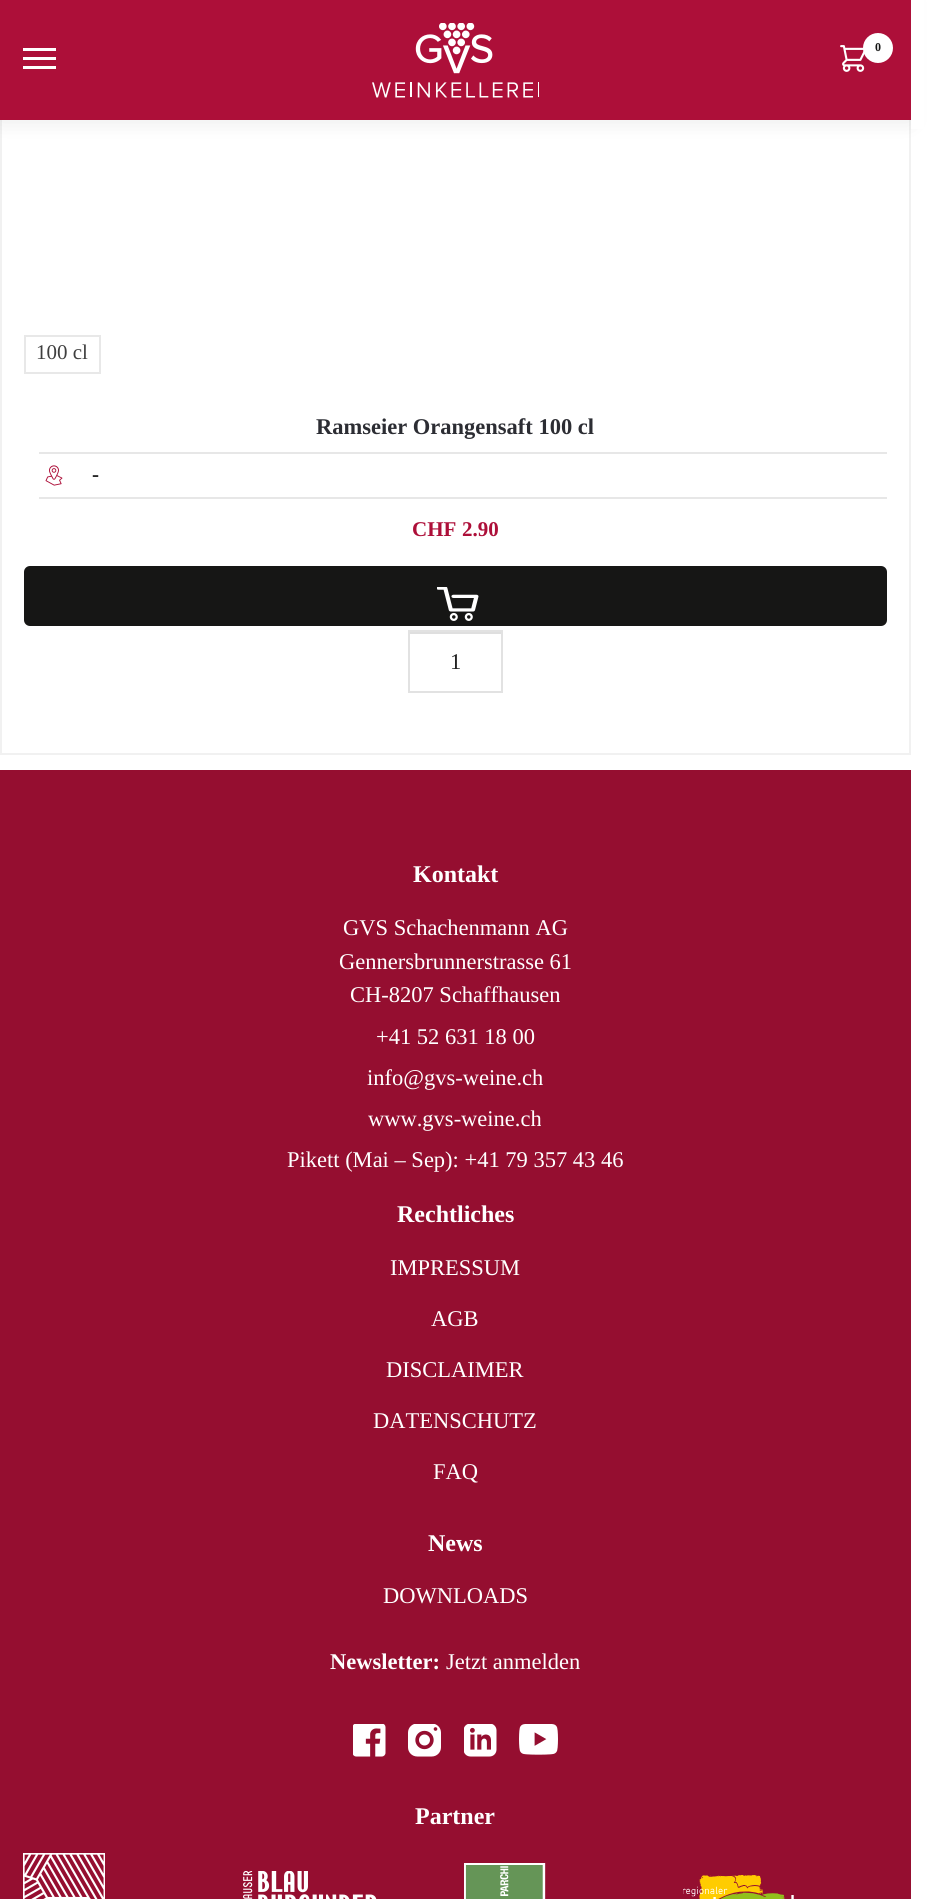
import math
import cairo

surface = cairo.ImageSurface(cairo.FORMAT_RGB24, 932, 1899)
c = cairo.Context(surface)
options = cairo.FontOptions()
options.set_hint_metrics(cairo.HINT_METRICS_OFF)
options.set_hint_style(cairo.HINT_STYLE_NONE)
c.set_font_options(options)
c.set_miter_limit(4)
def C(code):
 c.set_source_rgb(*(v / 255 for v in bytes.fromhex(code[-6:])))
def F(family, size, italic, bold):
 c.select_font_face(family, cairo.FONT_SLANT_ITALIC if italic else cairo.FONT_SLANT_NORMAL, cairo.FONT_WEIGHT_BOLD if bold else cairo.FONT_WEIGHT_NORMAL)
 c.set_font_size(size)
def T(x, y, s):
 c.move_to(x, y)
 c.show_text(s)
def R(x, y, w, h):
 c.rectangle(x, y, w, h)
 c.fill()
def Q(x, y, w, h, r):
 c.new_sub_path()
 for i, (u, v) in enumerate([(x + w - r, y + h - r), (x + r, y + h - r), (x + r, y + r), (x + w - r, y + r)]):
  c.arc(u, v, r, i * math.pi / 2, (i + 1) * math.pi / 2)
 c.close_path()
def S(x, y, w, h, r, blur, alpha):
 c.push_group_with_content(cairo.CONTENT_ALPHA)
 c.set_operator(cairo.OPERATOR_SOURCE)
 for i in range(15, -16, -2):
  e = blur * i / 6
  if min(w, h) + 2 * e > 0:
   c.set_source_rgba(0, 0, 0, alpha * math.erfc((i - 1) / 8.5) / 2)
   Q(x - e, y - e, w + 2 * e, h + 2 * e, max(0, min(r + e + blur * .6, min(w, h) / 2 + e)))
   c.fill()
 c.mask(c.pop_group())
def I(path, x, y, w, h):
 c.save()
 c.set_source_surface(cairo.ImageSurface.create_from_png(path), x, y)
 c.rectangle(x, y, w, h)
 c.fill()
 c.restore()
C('ffffff')
c.paint()
c.rectangle(1,-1,909,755)
C('f1f1f1')
c.stroke()
C('ad0f39')
R(0,0,911,120)
c.save()
c.set_fill_rule(cairo.FILL_RULE_EVEN_ODD)
c.new_path()
c.move_to(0,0)
c.line_to(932,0)
c.line_to(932,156)
c.line_to(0,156)
c.close_path()
c.move_to(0,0)
c.line_to(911,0)
c.line_to(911,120)
c.line_to(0,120)
c.close_path()
c.clip()
C('000000')
S(0,2,911,120,0,11,.08)
c.restore()
C('ffffff')
R(23,48,33,3)
R(23,57,33,3)
R(23,66,33,3)
I('1.png',372,23,167,75)
I('2.png',840,45,25,27)
c.arc(878,48,14,0,2 * math.pi)
c.fill_preserve()
c.stroke()
F('Liberation Serif',12,0,1)
C('161615')
T(875,51,'0')
C('ffffff')
R(911,0,13,129)
c.rectangle(25,336,75,37)
C('e8e8e8')
c.stroke()
F('Liberation Serif',21,0,0)
C('3f3f3f')
T(36,359,'100 cl')
F('Liberation Serif',22.5,0,1)
C('2c2d33')
T(316,434,'Ramseier Orangensaft 100 cl')
C('e7e7e7')
R(39,452,848,2)
R(39,497,848,2)
I('3.png',45,465,18,21)
F('Liberation Serif',21,0,0)
C('000000')
T(92,481,'-')
F('Liberation Serif',21,0,1)
C('ad0f39')
T(412,536,'CHF')
T(462,536,'2.90')
C('161615')
Q(24,566,863,60,6)
c.fill()
I('4.png',437,587,42,34)
C('dfdfdf')
R(410,632,91,2)
c.rectangle(409,631,93,61)
C('e2e2e2')
c.stroke()
F('Liberation Serif',22.5,0,0)
C('222222')
T(450,669,'1')
C('950e30')
R(0,770,911,1129)
F('Liberation Serif',24,0,1)
C('ffffff')
T(413,882,'Kontakt')
F('Liberation Serif',22.5,0,0)
T(343,935,'GVS Schachenmann AG')
T(339,969,'Gennersbrunnerstrasse 61')
T(350,1002,'CH-8207 Schaffhausen')
T(376,1044,'+41 52 631 18 00')
T(367,1085,'info@gvs-weine.ch')
T(368,1126,'www.gvs-weine.ch')
T(287,1167,'Pikett (Mai – Sep): +41 79 357 43 46')
F('Liberation Serif',24,0,1)
T(397,1222,'Rechtliches')
F('Liberation Serif',22.5,0,0)
T(390,1275,'IMPRESSUM')
T(431,1326,'AGB')
T(386,1377,'DISCLAIMER')
T(373,1428,'DATENSCHUTZ')
T(433,1479,'FAQ')
F('Liberation Serif',24,0,1)
T(428,1551,'News')
F('Liberation Serif',22.5,0,0)
T(383,1603,'DOWNLOADS')
F('Liberation Serif',22.5,0,1)
T(330,1669,'Newsletter:')
F('Liberation Serif',22.5,0,0)
T(446,1669,'Jetzt anmelden')
I('5.png',353,1724,33,33)
I('6.png',408,1724,33,33)
I('7.png',464,1724,33,33)
I('8.png',519,1724,39,31)
F('Liberation Serif',24,0,1)
T(415,1824,'Partner')
I('9.png',23,1853,82,46)
I('10.png',243,1871,134,28)
I('11.png',464,1863,82,36)
I('12.png',683,1875,111,24)
surface.write_to_png('o.png')
